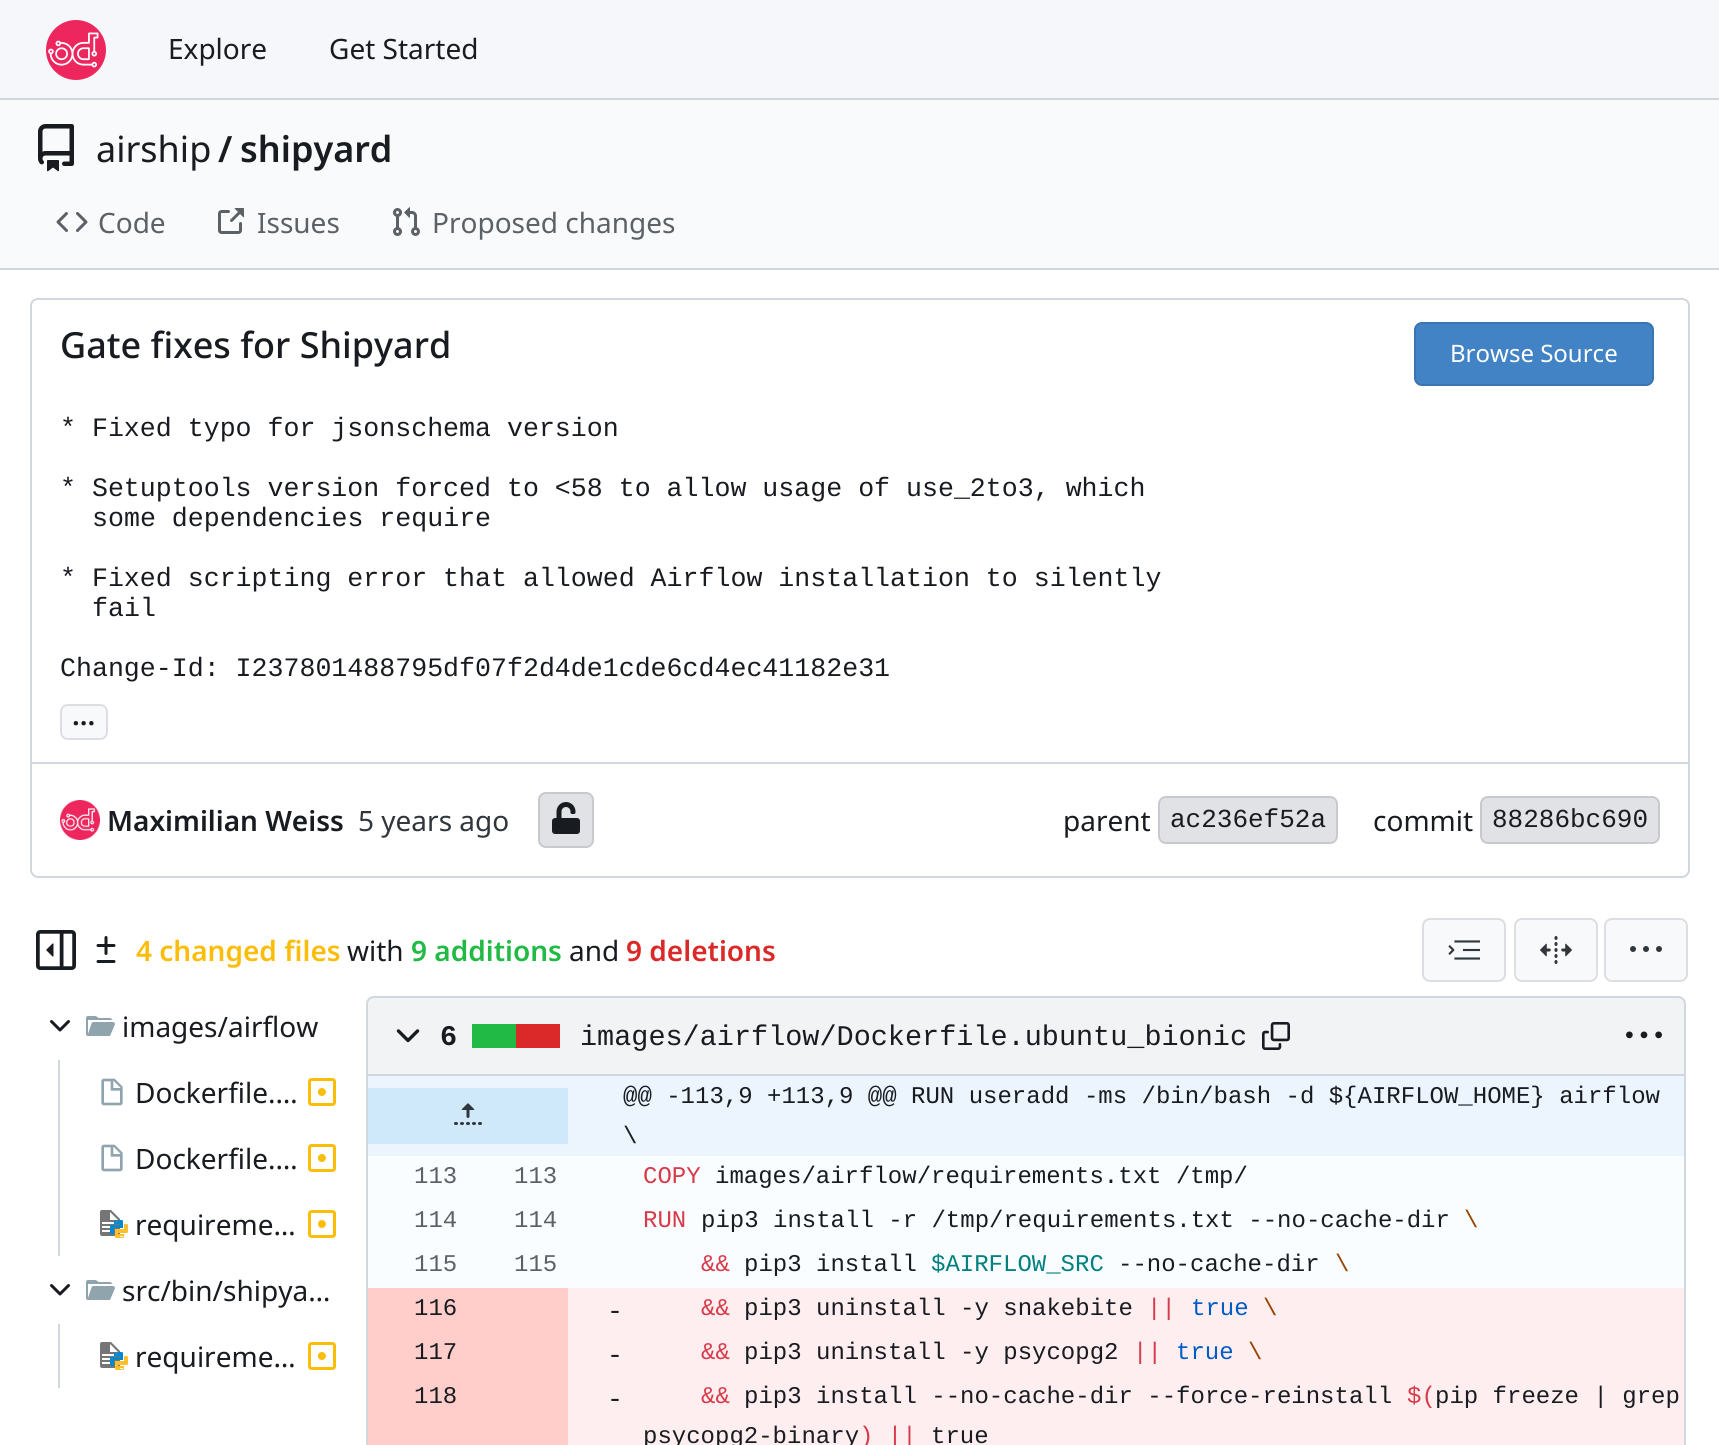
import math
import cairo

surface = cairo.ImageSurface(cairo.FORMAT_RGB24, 1719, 1445)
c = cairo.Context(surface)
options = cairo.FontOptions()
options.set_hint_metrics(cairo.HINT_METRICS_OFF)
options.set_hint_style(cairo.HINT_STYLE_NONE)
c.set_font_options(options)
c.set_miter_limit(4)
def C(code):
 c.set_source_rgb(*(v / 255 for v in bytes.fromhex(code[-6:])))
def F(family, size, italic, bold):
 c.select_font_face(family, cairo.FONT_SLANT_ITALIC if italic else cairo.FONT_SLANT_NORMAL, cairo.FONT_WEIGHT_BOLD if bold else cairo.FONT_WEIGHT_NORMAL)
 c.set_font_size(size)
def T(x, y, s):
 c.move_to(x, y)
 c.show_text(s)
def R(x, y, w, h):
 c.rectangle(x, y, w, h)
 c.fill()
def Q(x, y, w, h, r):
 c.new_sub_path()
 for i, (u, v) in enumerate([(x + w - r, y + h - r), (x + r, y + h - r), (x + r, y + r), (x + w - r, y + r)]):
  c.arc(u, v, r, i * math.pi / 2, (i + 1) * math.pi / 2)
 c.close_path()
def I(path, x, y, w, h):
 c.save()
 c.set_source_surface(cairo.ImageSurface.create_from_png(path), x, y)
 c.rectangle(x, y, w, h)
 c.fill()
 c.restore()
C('ffffff')
c.paint()
C('f6f7fa')
R(0,0,1719,98)
C('d0d7de')
R(0,98,1719,2)
I('1.png',46,20,60,60)
F('Noto Sans',28,0,0)
C('181c21')
T(168,59,'Explore')
T(329,59,'Get Started')
C('f9fafb')
R(0,100,1719,168)
I('2.png',38,124,36,48)
F('Noto Sans',36,0,0)
C('181c21')
T(96,162,'airship')
F('Noto Sans SemiBold',36,0,0)
T(218,162,'/')
T(240,162,'shipyard')
I('3.png',56,212,32,20)
F('Noto Sans',28,0,0)
C('5b6167')
T(98,233,'Code')
I('4.png',218,208,26,26)
T(257,233,'Issues')
I('5.png',393,207,27,29)
T(432,233,'Proposed changes')
C('d0d7de')
R(0,268,1719,2)
c.new_path()
c.move_to(38,299)
c.line_to(1682,299)
c.curve_to(1686,299,1689,302,1689,306)
c.line_to(1689,763)
c.line_to(31,763)
c.line_to(31,306)
c.curve_to(31,302,34,299,38,299)
c.close_path()
c.stroke()
F('Noto Sans Medium',36,0,0)
C('181c21')
T(60,358,'Gate fixes for Shipyard')
C('4183c4')
Q(1414,322,240,64,8)
c.fill()
Q(1415,323,238,62,7)
c.set_source_rgba(0,0,0.09,0.11)
c.stroke()
F('Noto Sans',24,0,0)
C('ffffff')
T(1450,362,'Browse Source')
F('Liberation Mono',26.6,0,0)
C('181c21')
T(60,436,'* Fixed typo for jsonschema version')
T(60,496,'* Setuptools version forced to <58 to allow usage of use_2to3, which')
T(92,526,'some dependencies require')
T(60,586,'* Fixed scripting error that allowed Airflow installation to silently')
T(92,616,'fail')
T(60,676,'Change-Id: I237801488795df07f2d4de1cde6cd4ec41182e31')
C('f8f9fb')
Q(60,704,48,36,8)
c.fill()
Q(61,705,46,34,7)
c.set_source_rgba(0,0,0.09,0.11)
c.stroke()
F('Noto Sans SemiBold',28,0,0)
C('181c21')
T(72,725,'...')
C('d0d7de')
c.set_fill_rule(cairo.FILL_RULE_EVEN_ODD)
c.new_path()
c.move_to(30,764)
c.line_to(1690,764)
c.line_to(1690,870)
c.curve_to(1690,874,1686,878,1682,878)
c.line_to(38,878)
c.curve_to(34,878,30,874,30,870)
c.close_path()
c.move_to(32,764)
c.line_to(1688,764)
c.line_to(1688,870)
c.curve_to(1688,873,1685,876,1682,876)
c.line_to(38,876)
c.curve_to(35,876,32,873,32,870)
c.close_path()
c.fill()
I('6.png',60,800,40,40)
C('181c21')
T(107,831,'Maximilian Weiss')
F('Noto Sans',28,0,0)
C('30363b')
T(358,831,'5 years ago')
C('e0e2e5')
Q(538,792,56,56,8)
c.fill()
Q(539,793,54,54,7)
c.set_source_rgba(0,0,0.09,0.11)
c.stroke()
I('7.png',552,802,28,32)
C('181c21')
T(1063,831,'parent')
C('e0e2e5')
Q(1158,796,180,48,8)
c.fill()
Q(1159,797,178,46,7)
c.set_source_rgba(0,0,0.09,0.11)
c.stroke()
F('Liberation Mono',26,0,0)
C('181c21')
T(1170,827,'ac236ef52a')
F('Noto Sans',28,0,0)
T(1373,831,'commit')
C('e0e2e5')
Q(1480,796,180,48,8)
c.fill()
Q(1481,797,178,46,7)
c.set_source_rgba(0,0,0.09,0.11)
c.stroke()
F('Liberation Mono',26,0,0)
C('181c21')
T(1492,827,'88286bc690')
I('8.png',36,930,40,40)
I('9.png',96,936,20,27)
F('Noto Sans SemiBold',28,0,0)
C('fbbd08')
T(136,961,'4 changed files')
F('Noto Sans',28,0,0)
C('181c21')
T(347,961,'with')
F('Noto Sans SemiBold',28,0,0)
C('21ba45')
T(411,961,'9 additions')
F('Noto Sans',28,0,0)
C('181c21')
T(569,961,'and')
F('Noto Sans SemiBold',28,0,0)
C('db2828')
T(626,961,'9 deletions')
C('f8f9fb')
Q(1422,918,84,64,8)
c.fill()
Q(1423,919,82,62,7)
c.set_source_rgba(0,0,0.09,0.11)
c.stroke()
I('10.png',1448,940,32,20)
C('f8f9fb')
Q(1514,918,84,64,8)
c.fill()
Q(1515,919,82,62,7)
c.set_source_rgba(0,0,0.09,0.11)
c.stroke()
I('11.png',1540,936,32,28)
C('f8f9fb')
Q(1604,918,84,64,8)
c.fill()
Q(1605,919,82,62,7)
c.set_source_rgba(0,0,0.09,0.11)
c.stroke()
I('12.png',1630,946,32,6)
I('13.png',50,1020,20,12)
I('14.png',86,1016,29,20)
F('Noto Sans',28,0,0)
C('181c21')
T(122,1037,'images/airflow')
C('d0d7de')
R(58,1060,2,196)
I('15.png',101,1078,22,28)
C('181c21')
T(135,1103,'Dockerfile.…')
I('16.png',308,1078,28,28)
I('15.png',101,1144,22,28)
T(135,1169,'Dockerfile.…')
I('16.png',308,1144,28,28)
I('17.png',100,1210,28,28)
T(135,1235,'requireme…')
I('16.png',308,1210,28,28)
I('13.png',50,1284,20,12)
I('14.png',86,1280,29,20)
T(122,1301,'src/bin/shipya…')
C('d0d7de')
R(58,1324,2,64)
I('17.png',100,1342,28,28)
C('181c21')
T(135,1367,'requireme…')
I('16.png',308,1342,28,28)
C('f1f3f5')
c.new_path()
c.move_to(374,997)
c.line_to(1678,997)
c.curve_to(1682,997,1685,1000,1685,1004)
c.line_to(1685,1075)
c.line_to(367,1075)
c.line_to(367,1004)
c.curve_to(367,1000,370,997,374,997)
c.close_path()
c.fill_preserve()
C('d0d7de')
c.stroke()
I('18.png',396,1029,24,14)
F('Liberation Mono',28.5,0,1)
C('181c21')
T(440,1045,'6')
C('db2828')
R(516,1024,44,24)
C('21ba45')
R(472,1024,44,24)
F('Liberation Mono',28.5,0,0)
C('181c21')
T(580,1045,'images/airflow/Dockerfile.ubuntu_bionic')
I('19.png',1262,1022,28,28)
I('20.png',1626,1031,36,8)
C('d0d7de')
c.new_path()
c.move_to(366,1076)
c.line_to(1686,1076)
c.line_to(1686,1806)
c.curve_to(1686,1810,1682,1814,1678,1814)
c.line_to(374,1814)
c.curve_to(370,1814,366,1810,366,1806)
c.close_path()
c.move_to(368,1076)
c.line_to(1684,1076)
c.line_to(1684,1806)
c.curve_to(1684,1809,1681,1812,1678,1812)
c.line_to(374,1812)
c.curve_to(371,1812,368,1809,368,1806)
c.close_path()
c.fill()
C('fafdff')
R(368,1156,1316,132)
C('ecf5fd')
R(368,1076,1316,80)
C('cfe8fa')
R(368,1088,200,56)
I('21.png',454,1103,28,22)
F('Liberation Mono',24,0,0)
C('181c21')
T(623,1103,'@@ -113,9 +113,9 @@ RUN useradd -ms /bin/bash -d ${AIRFLOW_HOME} airflow')
T(623,1143,'\\')
C('5b6167')
T(414,1183,'113')
T(514,1183,'113')
C('d73a49')
T(643,1183,'COPY')
C('181c21')
T(715,1183,'images/airflow/requirements.txt /tmp/')
C('5b6167')
T(414,1227,'114')
T(514,1227,'114')
C('d73a49')
T(643,1227,'RUN')
C('181c21')
T(701,1227,'pip3 install -r /tmp/requirements.txt --no-cache-dir')
C('994400')
T(1464,1227,'\\')
C('5b6167')
T(414,1271,'115')
T(514,1271,'115')
C('d73a49')
T(701,1271,'&&')
C('181c21')
T(744,1271,'pip3 install')
C('008080')
T(931,1271,'$AIRFLOW_SRC')
C('181c21')
T(1118,1271,'--no-cache-dir')
C('994400')
T(1335,1271,'\\')
C('ffeef0')
R(568,1288,1116,157)
C('ffcecb')
R(368,1288,200,44)
C('181c21')
T(414,1315,'116')
F('Liberation Mono',26.6,0,0)
T(607,1319,'-')
F('Liberation Mono',24,0,0)
C('d73a49')
T(701,1315,'&&')
C('181c21')
T(744,1315,'pip3 uninstall -y snakebite')
C('d73a49')
T(1147,1315,'||')
C('005cc5')
T(1191,1315,'true')
C('994400')
T(1263,1315,'\\')
C('ffcecb')
R(368,1332,200,44)
C('181c21')
T(414,1359,'117')
F('Liberation Mono',26.6,0,0)
T(607,1363,'-')
F('Liberation Mono',24,0,0)
C('d73a49')
T(701,1359,'&&')
C('181c21')
T(744,1359,'pip3 uninstall -y psycopg2')
C('d73a49')
T(1133,1359,'||')
C('005cc5')
T(1176,1359,'true')
C('994400')
T(1248,1359,'\\')
C('ffcecb')
R(368,1376,200,69)
C('181c21')
T(414,1403,'118')
F('Liberation Mono',26.6,0,0)
T(607,1407,'-')
F('Liberation Mono',24,0,0)
C('d73a49')
T(701,1403,'&&')
C('181c21')
T(744,1403,'pip3 install --no-cache-dir --force-reinstall')
C('d73a49')
T(1407,1403,'$(')
C('181c21')
T(1435,1403,'pip freeze | grep')
T(643,1443,'psycopg2-binary')
C('d73a49')
T(859,1443,') ||')
C('181c21')
T(931,1443,'true')
surface.write_to_png('o.png')
